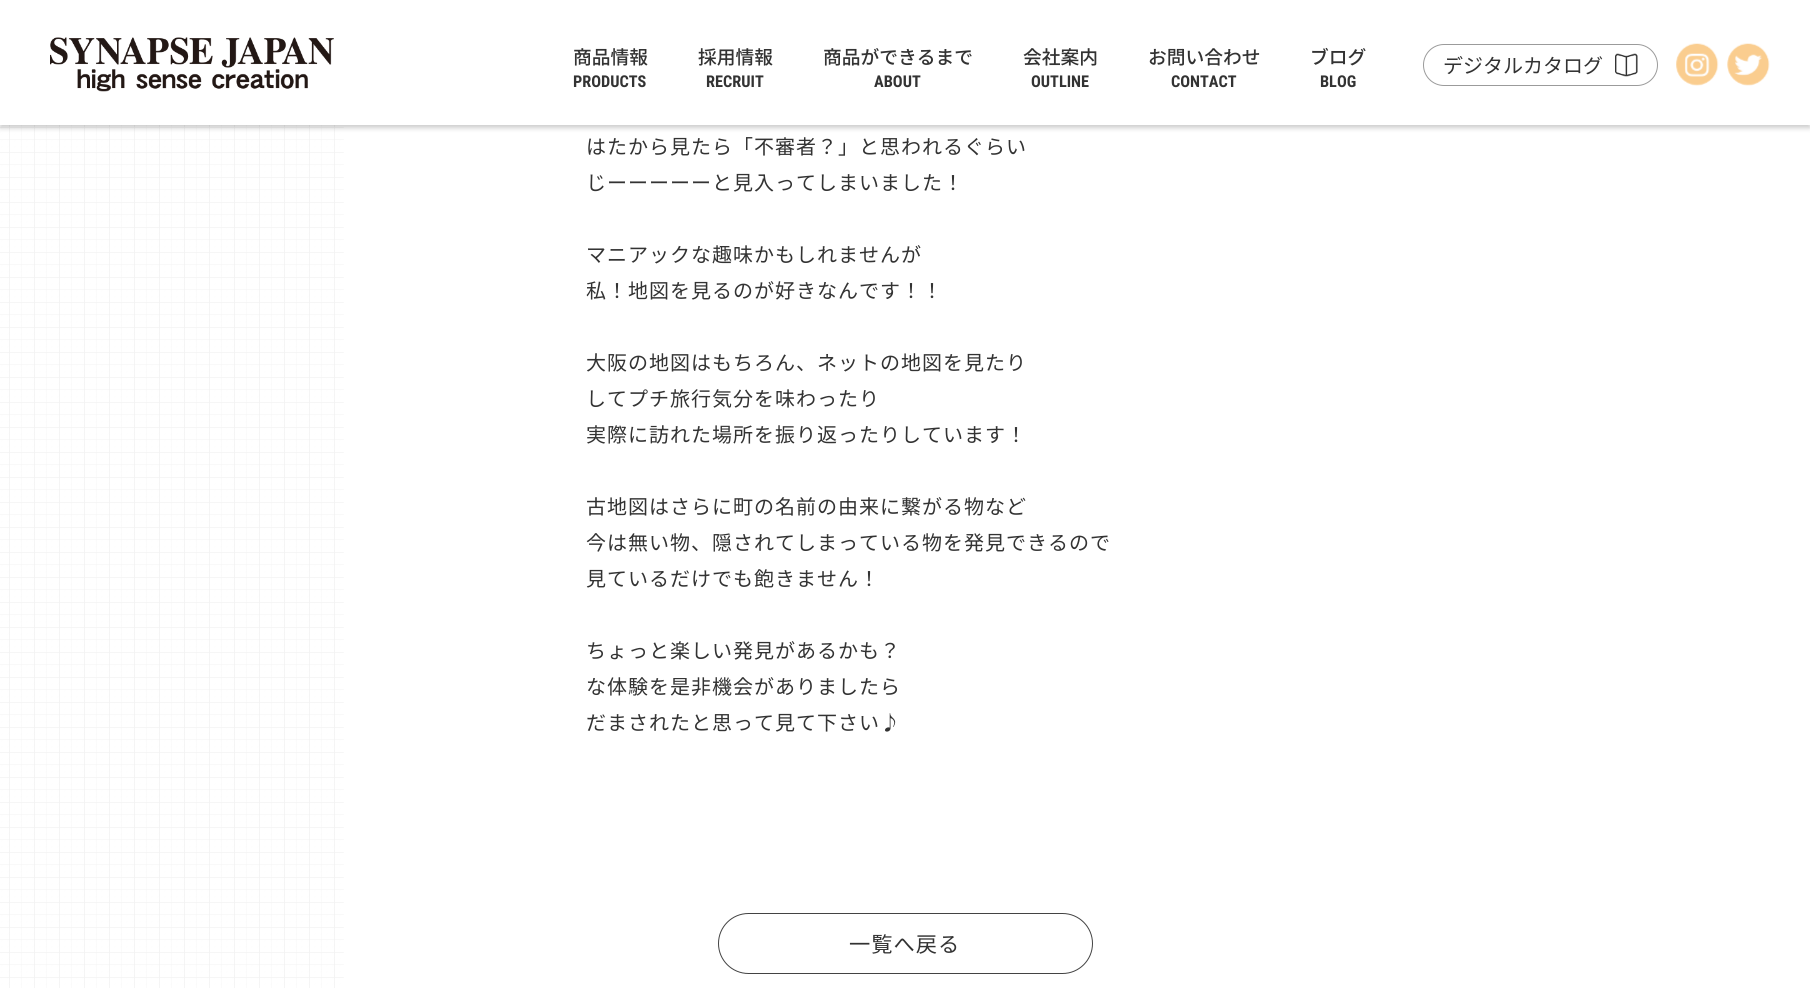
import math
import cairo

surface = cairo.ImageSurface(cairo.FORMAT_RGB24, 1810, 988)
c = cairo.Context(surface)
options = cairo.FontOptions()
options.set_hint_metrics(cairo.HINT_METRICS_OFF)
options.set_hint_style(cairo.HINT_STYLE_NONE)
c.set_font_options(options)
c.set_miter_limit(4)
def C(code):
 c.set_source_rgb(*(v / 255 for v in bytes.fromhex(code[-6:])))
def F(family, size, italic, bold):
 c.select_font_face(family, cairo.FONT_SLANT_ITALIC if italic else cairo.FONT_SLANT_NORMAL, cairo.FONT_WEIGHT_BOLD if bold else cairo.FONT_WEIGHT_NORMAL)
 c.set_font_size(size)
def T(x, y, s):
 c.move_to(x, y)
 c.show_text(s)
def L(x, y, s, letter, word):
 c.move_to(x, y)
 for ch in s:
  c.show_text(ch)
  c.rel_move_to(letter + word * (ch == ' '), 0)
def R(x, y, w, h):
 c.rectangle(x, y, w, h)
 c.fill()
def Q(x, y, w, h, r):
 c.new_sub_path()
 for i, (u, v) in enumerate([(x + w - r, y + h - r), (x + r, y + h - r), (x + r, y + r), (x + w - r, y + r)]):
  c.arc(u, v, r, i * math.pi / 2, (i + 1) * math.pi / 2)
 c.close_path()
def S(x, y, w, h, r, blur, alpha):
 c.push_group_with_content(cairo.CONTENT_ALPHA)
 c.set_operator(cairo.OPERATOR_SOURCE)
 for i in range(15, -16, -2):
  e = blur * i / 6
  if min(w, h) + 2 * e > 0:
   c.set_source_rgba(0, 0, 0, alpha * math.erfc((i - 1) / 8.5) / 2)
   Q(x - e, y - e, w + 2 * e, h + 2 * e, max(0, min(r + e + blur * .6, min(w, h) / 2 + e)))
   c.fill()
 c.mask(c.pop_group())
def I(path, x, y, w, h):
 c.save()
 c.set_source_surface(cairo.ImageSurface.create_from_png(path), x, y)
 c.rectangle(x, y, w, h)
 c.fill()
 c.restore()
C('ffffff')
c.paint()
I('5.png',0,125,344,863)
C('000000')
S(0,3,1810,125,0,2.5,.2)
C('ffffff')
R(0,0,1810,125)
I('1.png',50,37,284,55)
F('Noto Sans JP Medium',18.75,0,0)
C('333333')
T(573,64,'商品情報')
F('Roboto Condensed',16.25,0,1)
T(573,87,'PRODUCTS')
F('Noto Sans JP Medium',18.75,0,0)
T(698,64,'採用情報')
F('Roboto Condensed',16.25,0,1)
T(706,87,'RECRUIT')
F('Noto Sans JP Medium',18.75,0,0)
T(823,64,'商品ができるまで')
F('Roboto Condensed',16.25,0,1)
T(874,87,'ABOUT')
F('Noto Sans JP Medium',18.75,0,0)
T(1023,64,'会社案内')
F('Roboto Condensed',16.25,0,1)
T(1031,87,'OUTLINE')
F('Noto Sans JP Medium',18.75,0,0)
T(1148,64,'お問い合わせ')
F('Roboto Condensed',16.25,0,1)
T(1171,87,'CONTACT')
F('Noto Sans JP Medium',18.75,0,0)
T(1310,64,'ブログ')
F('Roboto Condensed',16.25,0,1)
T(1320,87,'BLOG')
Q(1423.5,44.5,234,41,20.5)
C('9b9b9b')
c.set_line_width(1)
c.stroke()
I('2.png',1615,53,23,24)
F('Noto Sans JP',20,0,0)
C('333333')
T(1443,73,'デジタルカタログ')
I('3.png',1676,43,43,43)
I('4.png',1727,43,43,43)
L(586,154,'はたから見たら「不審者？」と思われるぐらい',1,0)
L(586,190,'じーーーーーと見入ってしまいました！',1,0)
L(586,262,'マニアックな趣味かもしれませんが',1,0)
L(586,298,'私！地図を見るのが好きなんです！！',1,0)
L(586,370,'大阪の地図はもちろん、ネットの地図を見たり',1,0)
L(586,406,'してプチ旅行気分を味わったり',1,0)
L(586,442,'実際に訪れた場所を振り返ったりしています！',1,0)
L(586,514,'古地図はさらに町の名前の由来に繋がる物など',1,0)
L(586,550,'今は無い物、隠されてしまっている物を発見できるので',1,0)
L(586,586,'見ているだけでも飽きません！',1,0)
L(586,658,'ちょっと楽しい発見があるかも？',1,0)
L(586,694,'な体験を是非機会がありましたら',1,0)
L(586,730,'だまされたと思って見て下さい♪',1,0)
Q(718.5,913.5,374,60,30)
C('434343')
c.stroke()
F('Noto Sans JP',21.25,0,0)
C('333333')
L(849,952,'一覧へ戻る',1,0)
surface.write_to_png('o.png')
